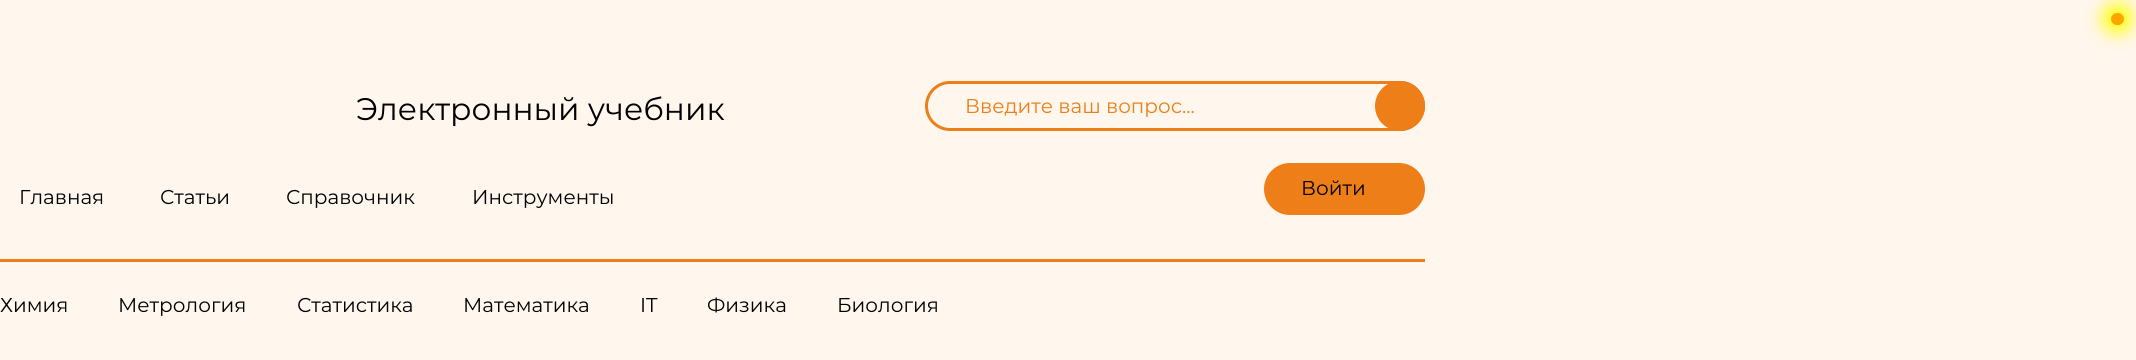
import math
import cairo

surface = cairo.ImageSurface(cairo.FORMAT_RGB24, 2136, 360)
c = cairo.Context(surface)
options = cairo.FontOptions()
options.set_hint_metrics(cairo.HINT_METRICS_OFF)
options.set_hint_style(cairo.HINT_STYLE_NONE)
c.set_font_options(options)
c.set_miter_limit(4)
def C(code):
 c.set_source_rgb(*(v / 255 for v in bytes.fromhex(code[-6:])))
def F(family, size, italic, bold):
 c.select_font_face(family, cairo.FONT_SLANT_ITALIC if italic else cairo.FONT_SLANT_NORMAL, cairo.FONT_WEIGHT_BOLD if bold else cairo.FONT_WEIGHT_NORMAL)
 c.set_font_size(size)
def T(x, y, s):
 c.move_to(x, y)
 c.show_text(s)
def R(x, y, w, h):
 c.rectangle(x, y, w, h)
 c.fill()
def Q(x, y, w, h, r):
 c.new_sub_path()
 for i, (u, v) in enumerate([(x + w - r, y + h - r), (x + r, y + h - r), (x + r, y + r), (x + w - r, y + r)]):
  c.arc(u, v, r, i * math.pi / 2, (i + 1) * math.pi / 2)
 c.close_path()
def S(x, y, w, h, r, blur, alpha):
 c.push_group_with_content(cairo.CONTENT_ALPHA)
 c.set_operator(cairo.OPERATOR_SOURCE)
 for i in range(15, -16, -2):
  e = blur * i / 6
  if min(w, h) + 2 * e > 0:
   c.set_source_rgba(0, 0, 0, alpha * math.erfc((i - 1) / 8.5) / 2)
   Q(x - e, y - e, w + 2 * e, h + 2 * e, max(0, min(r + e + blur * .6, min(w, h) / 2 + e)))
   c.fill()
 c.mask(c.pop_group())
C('fff6ee')
c.paint()
C('ffff00')
S(2105,6,25,25,12.5,9.5,1)
C('ffa500')
Q(2111,13,13,12,6)
c.fill()
F('Montserrat',31.25,0,0)
C('000000')
T(356,120,'Электронный учебник')
Q(926.5,82.5,497,47,23.5)
C('ed7e18')
c.set_line_width(3)
c.stroke()
F('Montserrat',20,0,0)
T(965,113,'Введите ваш вопрос...')
c.new_path()
c.arc(1400,106,25,0,2 * math.pi)
c.fill()
C('000000')
T(19,204,'Главная')
T(160,204,'Статьи')
T(286,204,'Справочник')
T(472,204,'Инструменты')
C('ed7e18')
Q(1264,163,161,52,26)
c.fill()
C('000000')
T(1301,195,'Войти')
C('ed7e18')
R(0,259,1425,3)
C('000000')
T(0,312,'Химия')
T(118,312,'Метрология')
T(297,312,'Статистика')
T(463,312,'Математика')
T(640,312,'IT')
T(707,312,'Физика')
T(837,312,'Биология')
surface.write_to_png('o.png')
